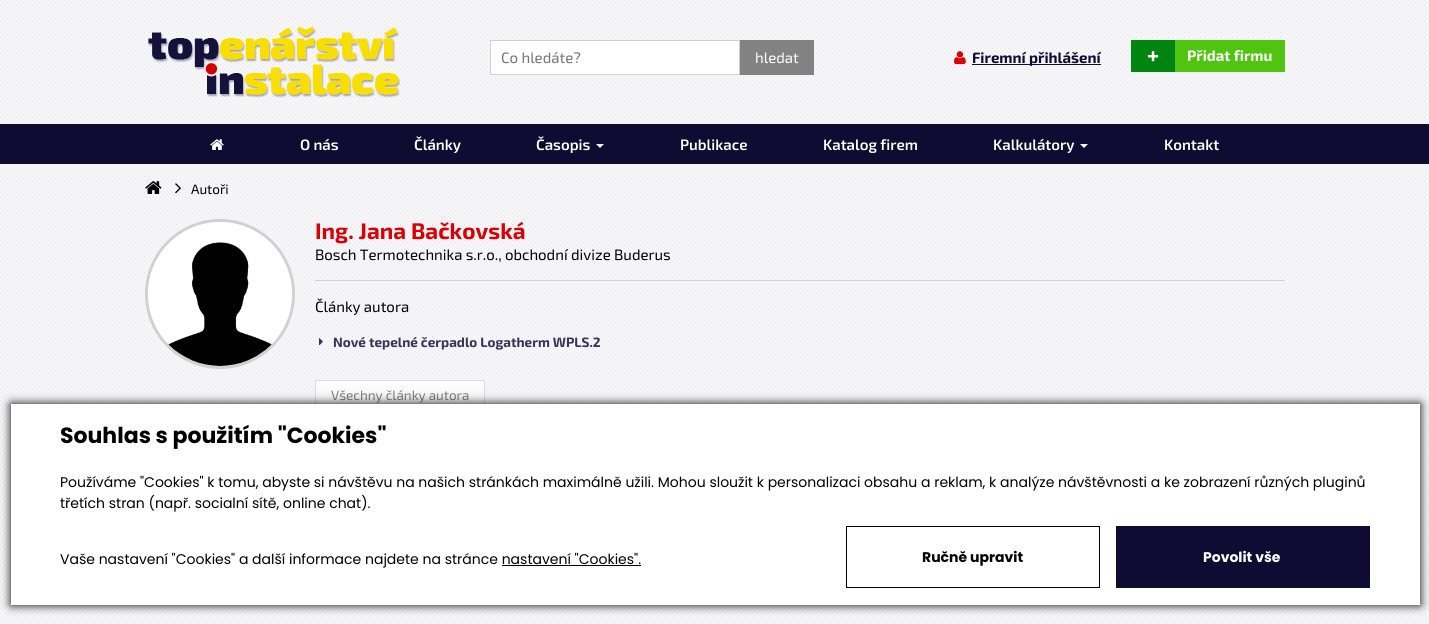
import math
import cairo

surface = cairo.ImageSurface(cairo.FORMAT_RGB24, 1429, 624)
c = cairo.Context(surface)
options = cairo.FontOptions()
options.set_hint_metrics(cairo.HINT_METRICS_OFF)
options.set_hint_style(cairo.HINT_STYLE_NONE)
c.set_font_options(options)
c.set_miter_limit(4)
def C(code):
 c.set_source_rgb(*(v / 255 for v in bytes.fromhex(code[-6:])))
def F(family, size, italic, bold):
 c.select_font_face(family, cairo.FONT_SLANT_ITALIC if italic else cairo.FONT_SLANT_NORMAL, cairo.FONT_WEIGHT_BOLD if bold else cairo.FONT_WEIGHT_NORMAL)
 c.set_font_size(size)
def T(x, y, s):
 c.move_to(x, y)
 c.show_text(s)
def R(x, y, w, h):
 c.rectangle(x, y, w, h)
 c.fill()
def Q(x, y, w, h, r):
 c.new_sub_path()
 for i, (u, v) in enumerate([(x + w - r, y + h - r), (x + r, y + h - r), (x + r, y + r), (x + w - r, y + r)]):
  c.arc(u, v, r, i * math.pi / 2, (i + 1) * math.pi / 2)
 c.close_path()
def S(x, y, w, h, r, blur, alpha):
 c.push_group_with_content(cairo.CONTENT_ALPHA)
 c.set_operator(cairo.OPERATOR_SOURCE)
 for i in range(15, -16, -2):
  e = blur * i / 6
  if min(w, h) + 2 * e > 0:
   c.set_source_rgba(0, 0, 0, alpha * math.erfc((i - 1) / 8.5) / 2)
   Q(x - e, y - e, w + 2 * e, h + 2 * e, max(0, min(r + e + blur * .6, min(w, h) / 2 + e)))
   c.fill()
 c.mask(c.pop_group())
def I(path, x, y, w, h):
 c.save()
 c.set_source_surface(cairo.ImageSurface.create_from_png(path), x, y)
 c.rectangle(x, y, w, h)
 c.fill()
 c.restore()
C('ffffff')
c.paint()
I('1.png',0,0,1429,624)
I('2.png',148,26,252,72)
C('ffffff')
c.rectangle(490.5,40.5,249,34)
c.fill_preserve()
C('d0d0d0')
c.set_line_width(1)
c.stroke()
F('Exo 2',15,0,0)
C('757575')
T(501,63,'Co hledáte?')
C('828282')
R(740,40,74,35)
C('ffffff')
T(755,63,'hledat')
I('3.png',954,51,12,14)
C('100b33')
R(972,64,129,1)
F('Exo 2',15,0,1)
T(972,63,'Firemní přihlášení')
C('028410')
R(1131,40,44,32)
F('Exo 2',22.5,0,1)
C('ffffff')
T(1147,63,'+')
C('4fc510')
R(1175,40,110,32)
F('Exo 2',15,0,1)
C('ffffff')
T(1187,61,'Přidat firmu')
C('100b33')
R(0,124,1429,40)
I('4.png',210,139,14,11)
F('Exo 2 SemiBold',15,0,0)
C('ffffff')
T(300,150,'O nás')
T(414,150,'Články')
T(536,150,'Časopis')
c.new_path()
c.move_to(596,144)
c.line_to(604,144)
c.line_to(600,148)
c.close_path()
c.fill()
T(680,150,'Publikace')
T(823,150,'Katalog firem')
T(993,150,'Kalkulátory')
c.new_path()
c.move_to(1080,144)
c.line_to(1088,144)
c.line_to(1084,148)
c.close_path()
c.fill()
T(1164,150,'Kontakt')
I('5.png',145,181,17,13)
I('6.png',175,183,6,11)
F('Exo 2',13.5,0,0)
C('000000')
T(191,194,'Autoři')
c.new_path()
c.arc(220,294,73.5,0,2 * math.pi)
C('d1d1d1')
c.set_line_width(3)
c.stroke()
I('7.png',148,222,144,144)
F('Exo 2',22.5,0,1)
C('da0003')
T(315,239,'Ing. Jana Bačkovská')
F('Exo 2',15,0,0)
C('000000')
T(315,260,'Bosch Termotechnika s.r.o., obchodní divize Buderus')
C('d1d1d1')
R(315,280,970,1)
C('000000')
T(315,312,'Články autora')
I('8.png',319,338,4,8)
F('Exo 2',13.5,0,1)
C('38335b')
T(333,347,'Nové tepelné čerpadlo Logatherm WPLS.2')
gradient = cairo.LinearGradient(400,381,400,410)
gradient.add_color_stop_rgba(0,1,1,1,1)
gradient.add_color_stop_rgba(1,0.949,0.945,0.949,1)
c.set_source(gradient)
R(316,381,168,23)
c.rectangle(315.5,380.5,169,30)
C('d8d8dd')
c.set_line_width(1)
c.stroke()
F('Exo 2',13.5,0,0)
C('7e7f7e')
T(331,400,'Všechny články autora')
C('000000')
S(11,404,1409,201,0,5,1)
C('ffffff')
R(11,404,1409,201)
F('Poppins',22,0,1)
C('000000')
T(60,443,'Souhlas s použitím "Cookies"')
F('Poppins',14,0,0)
T(60,487,'Používáme "Cookies" k tomu, abyste si návštěvu na našich stránkách maximálně užili. Mohou sloužit k personalizaci obsahu a reklam, k analýze návštěvnosti a ke zobrazení různých pluginů')
T(60,508,'třetích stran (např. socialní sítě, online chat).')
T(60,564,'Vaše nastavení "Cookies" a další informace najdete na stránce nastavení "Cookies".')
R(502,565,139,1)
c.rectangle(846.5,526.5,253,61)
c.stroke()
F('Poppins',14,0,1)
T(922,562,'Ručně upravit')
C('100b33')
R(1116,526,254,62)
C('ffffff')
T(1203,562,'Povolit vše')
surface.write_to_png('o.png')
